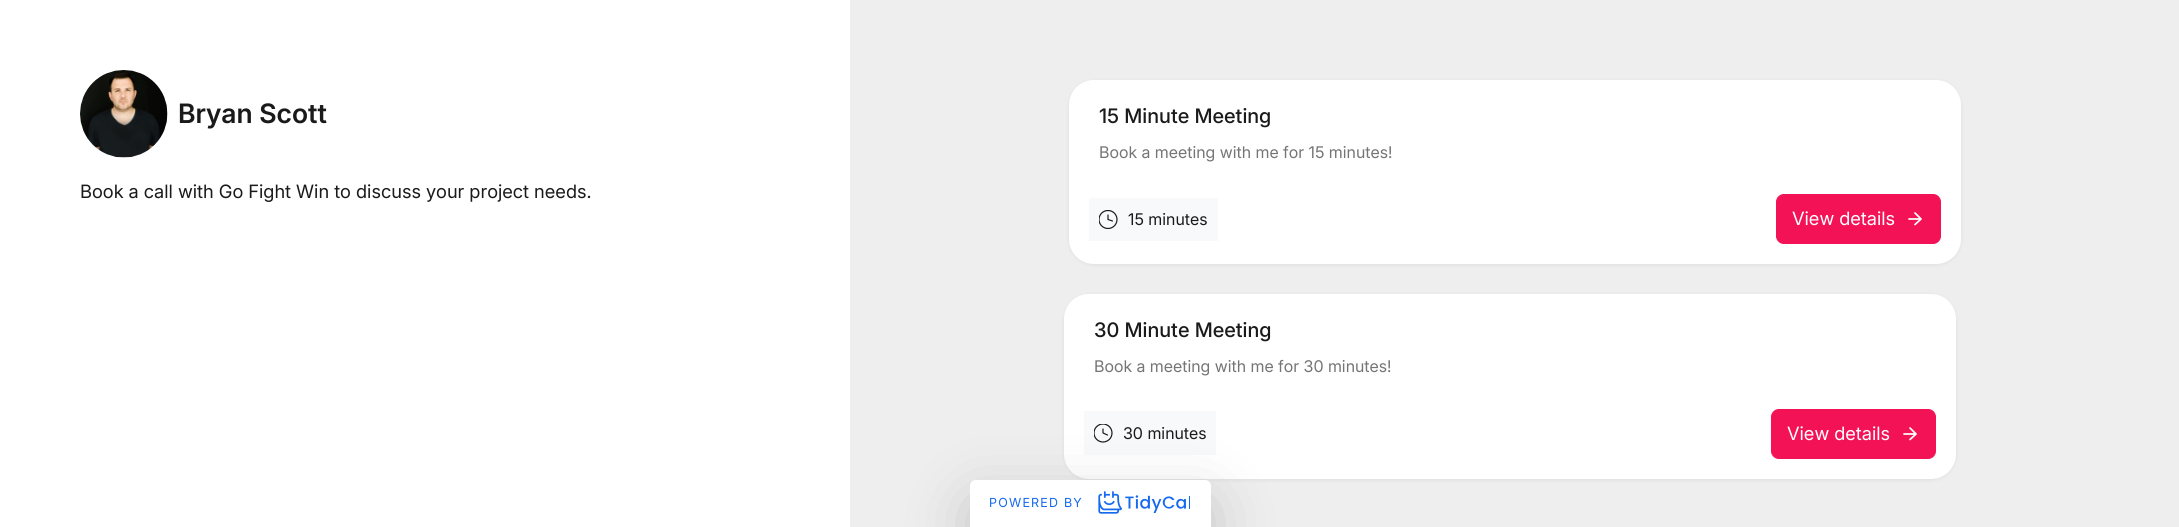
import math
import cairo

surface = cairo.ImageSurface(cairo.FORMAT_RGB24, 2179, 527)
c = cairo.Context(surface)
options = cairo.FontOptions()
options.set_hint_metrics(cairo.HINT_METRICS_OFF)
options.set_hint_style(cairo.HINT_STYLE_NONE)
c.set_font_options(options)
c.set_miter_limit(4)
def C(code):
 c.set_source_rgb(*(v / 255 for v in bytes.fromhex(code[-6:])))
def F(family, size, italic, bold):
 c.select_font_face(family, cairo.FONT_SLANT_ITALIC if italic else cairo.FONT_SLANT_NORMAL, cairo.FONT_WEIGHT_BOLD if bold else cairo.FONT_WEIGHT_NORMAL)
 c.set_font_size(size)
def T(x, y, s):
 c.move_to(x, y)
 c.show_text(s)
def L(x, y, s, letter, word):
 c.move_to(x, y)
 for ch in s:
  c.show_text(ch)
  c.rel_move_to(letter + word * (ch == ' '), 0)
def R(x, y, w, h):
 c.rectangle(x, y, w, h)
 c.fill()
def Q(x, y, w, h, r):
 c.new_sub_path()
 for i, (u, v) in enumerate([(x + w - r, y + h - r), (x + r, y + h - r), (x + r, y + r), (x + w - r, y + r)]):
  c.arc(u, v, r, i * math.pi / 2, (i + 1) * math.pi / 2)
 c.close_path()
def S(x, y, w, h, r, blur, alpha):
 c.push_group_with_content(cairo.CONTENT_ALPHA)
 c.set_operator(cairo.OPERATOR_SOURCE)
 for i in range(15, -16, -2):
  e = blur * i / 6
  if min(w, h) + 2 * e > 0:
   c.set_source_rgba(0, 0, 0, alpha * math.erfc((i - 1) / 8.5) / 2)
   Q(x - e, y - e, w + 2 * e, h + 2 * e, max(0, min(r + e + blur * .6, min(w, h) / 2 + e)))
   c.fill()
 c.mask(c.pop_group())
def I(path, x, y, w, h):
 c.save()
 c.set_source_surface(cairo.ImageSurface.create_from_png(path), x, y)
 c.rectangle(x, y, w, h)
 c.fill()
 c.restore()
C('eeeeef')
c.paint()
C('ffffff')
R(0,0,850,527)
I('1.png',80,70,88,88)
F('Inter SemiBold',26.75,0,0)
C('1a1a1a')
T(178,123,'Bryan Scott')
F('Inter',18.4,0,0)
T(80,198,'Book a call with Go Fight Win to discuss your project needs.')
C('000000')
S(1069,81,892,184,25,2,.07)
C('ffffff')
Q(1069,80,892,184,25)
c.fill()
F('Inter Medium',20,0,0)
C('1a1a1a')
T(1099,123,'15 Minute Meeting')
F('Inter',16.1,0,0)
C('757575')
T(1099,158,'Book a meeting with me for 15 minutes!')
C('f8f9fa')
R(1089,198,129,43)
c.save()
c.rectangle(1099,210,19,19)
c.clip()
c.arc(1108,219.5,9,0,2 * math.pi)
C('191919')
c.set_line_width(1.2)
c.stroke()
c.restore()
c.new_path()
c.move_to(1108,215)
c.line_to(1108,219.5)
c.line_to(1112.5,221)
C('191919')
c.set_line_width(1.2)
c.set_line_cap(cairo.LINE_CAP_ROUND)
c.set_line_join(cairo.LINE_JOIN_ROUND)
c.stroke()
C('1a1a1a')
T(1128,225,'15 minutes')
C('f31255')
Q(1776.5,194.5,164,49,7.5)
c.fill_preserve()
c.set_line_width(1)
c.set_line_cap(cairo.LINE_CAP_BUTT)
c.set_line_join(cairo.LINE_JOIN_MITER)
c.stroke()
F('Inter',18.4,0,0)
C('ffffff')
T(1792,225,'View details')
c.new_path()
c.move_to(1909,219)
c.line_to(1921,219)
c.move_to(1915,213)
c.line_to(1921,219)
c.line_to(1915,224.5)
c.set_line_width(1.7)
c.set_line_cap(cairo.LINE_CAP_ROUND)
c.set_line_join(cairo.LINE_JOIN_ROUND)
c.stroke()
C('000000')
S(1064,295,892,185,25,2,.07)
C('ffffff')
Q(1064,294,892,185,25)
c.fill()
F('Inter Medium',20,0,0)
C('1a1a1a')
T(1094,337,'30 Minute Meeting')
F('Inter',16.1,0,0)
C('757575')
T(1094,372,'Book a meeting with me for 30 minutes!')
C('f8f9fa')
R(1084,411,132,44)
c.save()
c.rectangle(1094,424,19,19)
c.clip()
c.arc(1103,433,9,0,2 * math.pi)
C('191919')
c.set_line_width(1.2)
c.set_line_cap(cairo.LINE_CAP_BUTT)
c.set_line_join(cairo.LINE_JOIN_MITER)
c.stroke()
c.restore()
c.new_path()
c.move_to(1103,429)
c.line_to(1103,433)
c.line_to(1107.5,435)
C('191919')
c.set_line_width(1.2)
c.stroke()
C('1a1a1a')
T(1123,439,'30 minutes')
C('f31255')
Q(1771.5,409.5,164,49,7.5)
c.fill_preserve()
c.set_line_width(1)
c.set_line_cap(cairo.LINE_CAP_BUTT)
c.set_line_join(cairo.LINE_JOIN_MITER)
c.stroke()
F('Inter',18.4,0,0)
C('ffffff')
T(1787,440,'View details')
c.new_path()
c.move_to(1904,434)
c.line_to(1916,434)
c.move_to(1910,428)
c.line_to(1916,434)
c.line_to(1910,439.5)
c.set_line_width(1.7)
c.set_line_cap(cairo.LINE_CAP_ROUND)
c.set_line_join(cairo.LINE_JOIN_ROUND)
c.stroke()
C('000000')
S(970,500,241,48,6,30,.18)
C('ffffff')
c.new_path()
c.move_to(976,480)
c.line_to(1205,480)
c.curve_to(1208.5,480,1211,482.5,1211,486)
c.line_to(1211,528)
c.line_to(970,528)
c.line_to(970,486)
c.curve_to(970,482.5,972.5,480,976,480)
c.close_path()
c.fill()
F('Inter',12.5,0,0)
C('1569ef')
L(989,507,'POWERED BY',1.25,0)
I('2.png',1098,491,92,23)
surface.write_to_png('o.png')
